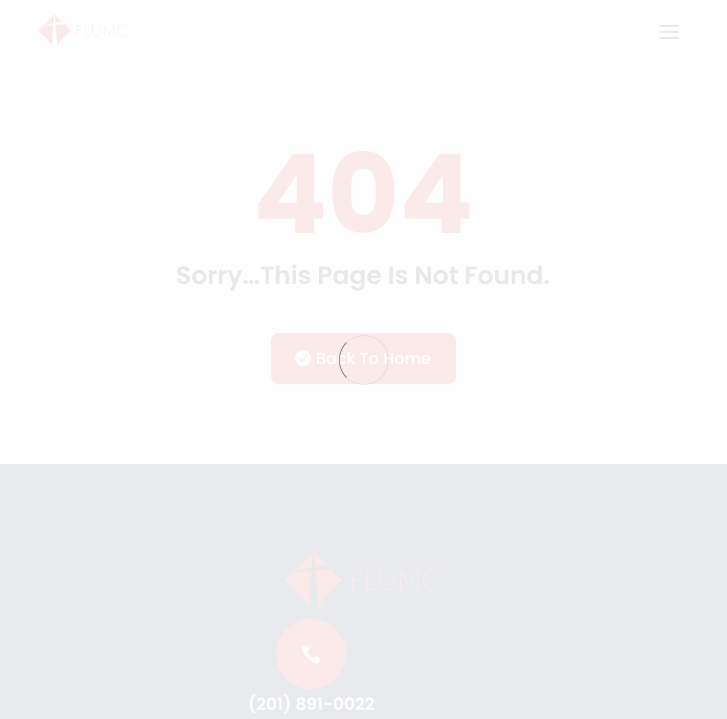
import math
import cairo

surface = cairo.ImageSurface(cairo.FORMAT_RGB24, 727, 719)
c = cairo.Context(surface)
options = cairo.FontOptions()
options.set_hint_metrics(cairo.HINT_METRICS_OFF)
options.set_hint_style(cairo.HINT_STYLE_NONE)
c.set_font_options(options)
c.set_miter_limit(4)
def C(code):
 c.set_source_rgb(*(v / 255 for v in bytes.fromhex(code[-6:])))
def F(family, size, italic, bold):
 c.select_font_face(family, cairo.FONT_SLANT_ITALIC if italic else cairo.FONT_SLANT_NORMAL, cairo.FONT_WEIGHT_BOLD if bold else cairo.FONT_WEIGHT_NORMAL)
 c.set_font_size(size)
def T(x, y, s):
 c.move_to(x, y)
 c.show_text(s)
def R(x, y, w, h):
 c.rectangle(x, y, w, h)
 c.fill()
def Q(x, y, w, h, r):
 c.new_sub_path()
 for i, (u, v) in enumerate([(x + w - r, y + h - r), (x + r, y + h - r), (x + r, y + r), (x + w - r, y + r)]):
  c.arc(u, v, r, i * math.pi / 2, (i + 1) * math.pi / 2)
 c.close_path()
def I(path, x, y, w, h):
 c.save()
 c.set_source_surface(cairo.ImageSurface.create_from_png(path), x, y)
 c.rectangle(x, y, w, h)
 c.fill()
 c.restore()
C('fefefe')
c.paint()
I('1.png',38,12,89,36)
I('2.png',659,24,20,15)
F('Poppins',110,0,1)
C('faebea')
T(253,233,'404')
F('Poppins SemiBold',25,0,0)
C('e8e8e8')
T(176,284,'Sorry…This Page Is Not Found.')
C('faebea')
Q(271,333,185,51,8)
c.fill()
I('3.png',295,350,16,16)
F('Poppins Medium',16,0,0)
C('fefefe')
T(316,364,'Back To Home')
C('e9eaed')
R(0,464,727,255)
I('4.png',285,549,155,61)
C('faebea')
c.arc(311,654,35,0,2 * math.pi)
c.fill()
I('5.png',301,645,20,19)
F('Poppins SemiBold',17,0,0)
C('fefefe')
T(248,710,'(201) 891-0022')
c.new_path()
c.move_to(346.5,342.5)
c.curve_to(352.5,337,361,334.5,369,336)
c.curve_to(397.5,341.5,393,384.5,364,384.5)
c.curve_to(357.5,384.5,351,382,346.5,377.5)
c.set_source_rgba(0,0,0,0.07)
c.set_line_width(1)
c.stroke()
c.new_path()
c.move_to(346.5,377.5)
c.curve_to(337,368,337,352,346.5,342.5)
c.set_source_rgba(0,0,0,0.45)
c.stroke()
surface.write_to_png('o.png')
